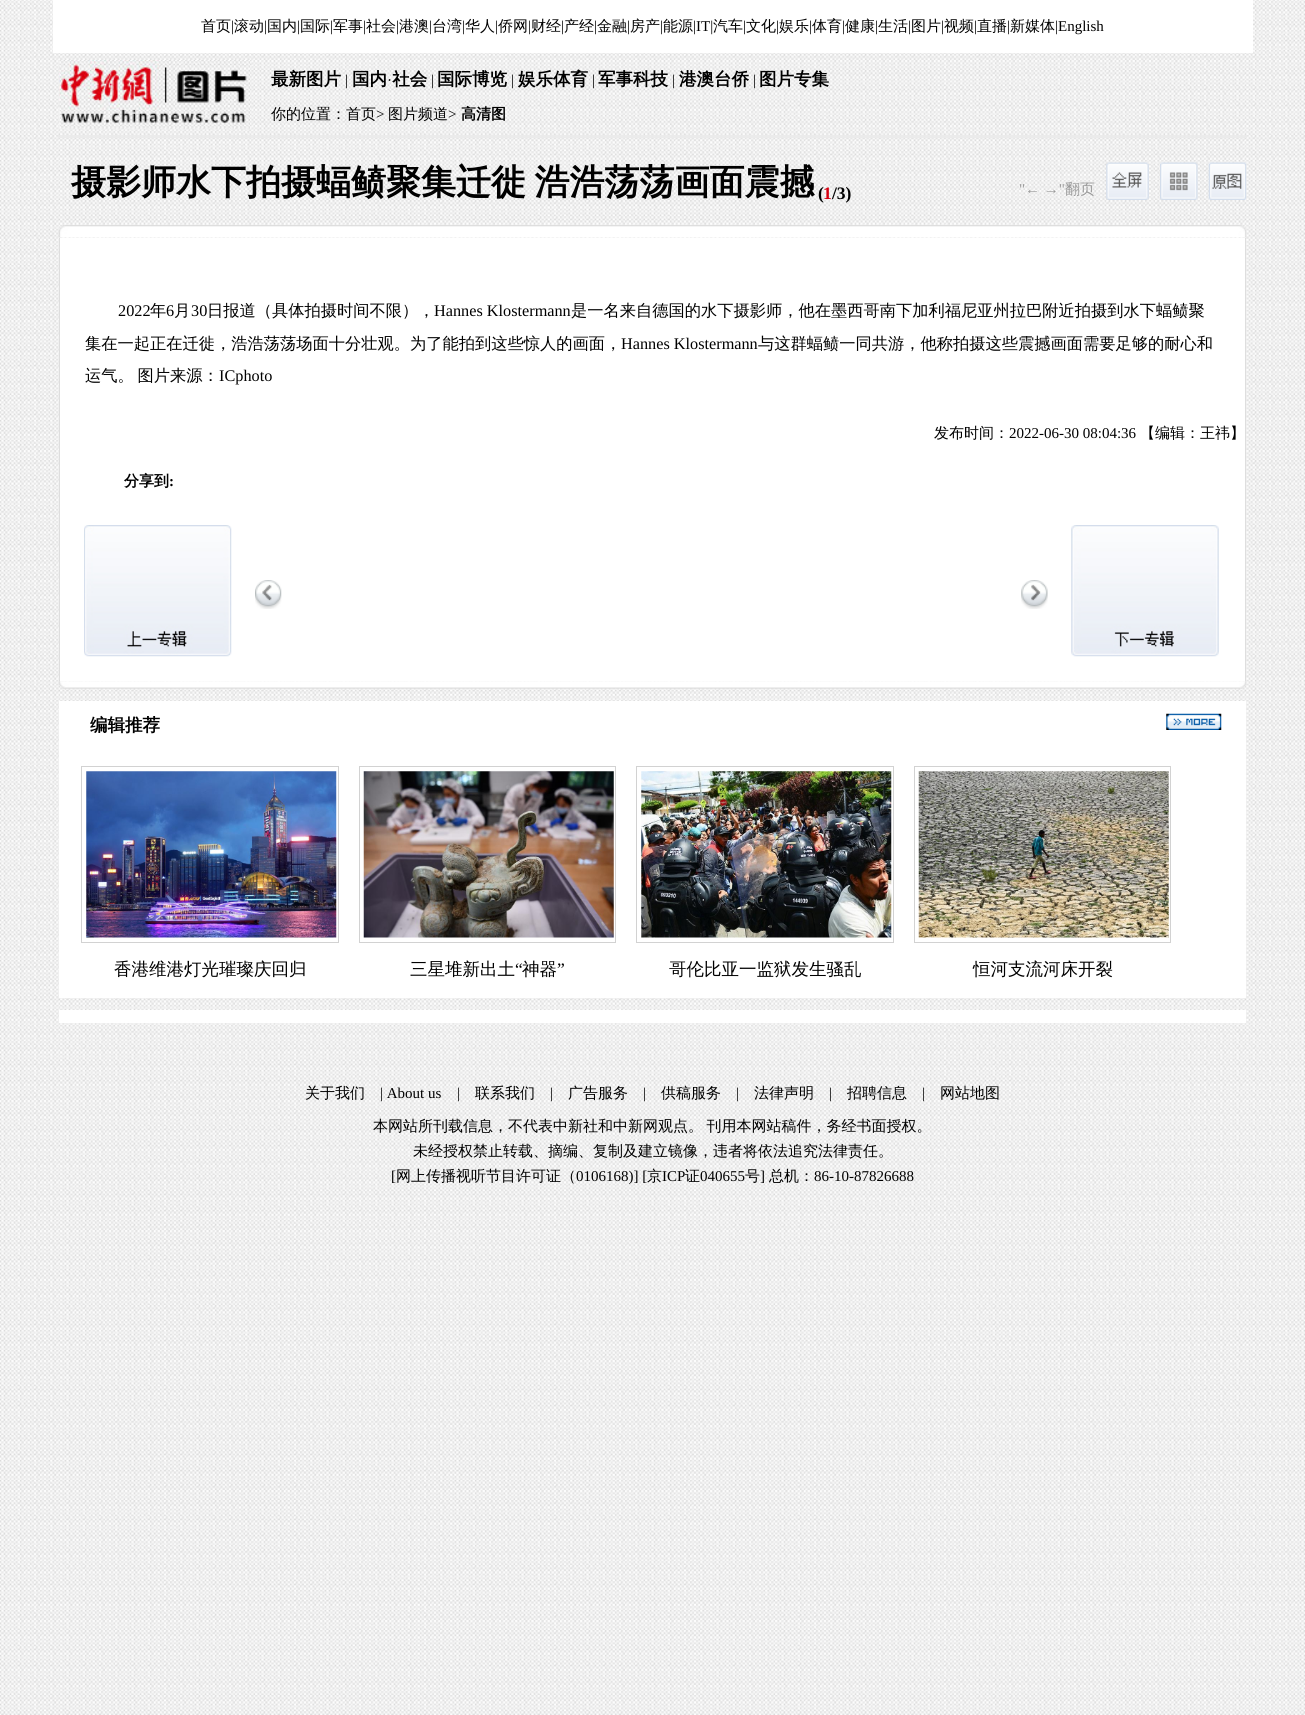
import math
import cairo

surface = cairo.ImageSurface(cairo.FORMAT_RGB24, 1305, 1715)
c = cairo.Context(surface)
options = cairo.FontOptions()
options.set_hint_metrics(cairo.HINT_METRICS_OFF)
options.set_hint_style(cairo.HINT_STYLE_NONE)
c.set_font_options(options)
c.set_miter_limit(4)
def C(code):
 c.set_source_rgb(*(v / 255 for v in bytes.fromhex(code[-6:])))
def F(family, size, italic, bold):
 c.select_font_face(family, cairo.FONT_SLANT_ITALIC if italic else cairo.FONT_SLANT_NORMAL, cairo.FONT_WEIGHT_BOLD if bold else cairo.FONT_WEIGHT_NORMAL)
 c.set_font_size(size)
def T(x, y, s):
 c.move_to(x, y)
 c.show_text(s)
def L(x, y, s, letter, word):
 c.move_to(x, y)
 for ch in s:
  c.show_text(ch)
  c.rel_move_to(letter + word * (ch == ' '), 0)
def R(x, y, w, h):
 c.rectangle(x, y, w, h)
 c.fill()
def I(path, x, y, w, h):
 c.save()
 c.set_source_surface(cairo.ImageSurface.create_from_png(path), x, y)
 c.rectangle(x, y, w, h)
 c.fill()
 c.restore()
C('ffffff')
c.paint()
I('1.png',0,0,1305,1715)
C('ffffff')
R(53,0,1200,53)
F('WenQuanYi Zen Hei Medium',15,0,0)
C('000000')
T(201,31,'首页')
F('Liberation Serif',15,0,0)
T(231,31,'|')
F('WenQuanYi Zen Hei Medium',15,0,0)
T(234,31,'滚动')
F('Liberation Serif',15,0,0)
T(264,31,'|')
F('WenQuanYi Zen Hei Medium',15,0,0)
T(267,31,'国内')
F('Liberation Serif',15,0,0)
T(297,31,'|')
F('WenQuanYi Zen Hei Medium',15,0,0)
T(300,31,'国际')
F('Liberation Serif',15,0,0)
T(330,31,'|')
F('WenQuanYi Zen Hei Medium',15,0,0)
T(333,31,'军事')
F('Liberation Serif',15,0,0)
T(363,31,'|')
F('WenQuanYi Zen Hei Medium',15,0,0)
T(366,31,'社会')
F('Liberation Serif',15,0,0)
T(396,31,'|')
F('WenQuanYi Zen Hei Medium',15,0,0)
T(399,31,'港澳')
F('Liberation Serif',15,0,0)
T(429,31,'|')
F('WenQuanYi Zen Hei Medium',15,0,0)
T(432,31,'台湾')
F('Liberation Serif',15,0,0)
T(462,31,'|')
F('WenQuanYi Zen Hei Medium',15,0,0)
T(465,31,'华人')
F('Liberation Serif',15,0,0)
T(495,31,'|')
F('WenQuanYi Zen Hei Medium',15,0,0)
T(498,31,'侨网')
F('Liberation Serif',15,0,0)
T(528,31,'|')
F('WenQuanYi Zen Hei Medium',15,0,0)
T(531,31,'财经')
F('Liberation Serif',15,0,0)
T(561,31,'|')
F('WenQuanYi Zen Hei Medium',15,0,0)
T(564,31,'产经')
F('Liberation Serif',15,0,0)
T(594,31,'|')
F('WenQuanYi Zen Hei Medium',15,0,0)
T(597,31,'金融')
F('Liberation Serif',15,0,0)
T(627,31,'|')
F('WenQuanYi Zen Hei Medium',15,0,0)
T(630,31,'房产')
F('Liberation Serif',15,0,0)
T(660,31,'|')
F('WenQuanYi Zen Hei Medium',15,0,0)
T(663,31,'能源')
F('Liberation Serif',15,0,0)
T(693,31,'|IT|')
F('WenQuanYi Zen Hei Medium',15,0,0)
T(713,31,'汽车')
F('Liberation Serif',15,0,0)
T(743,31,'|')
F('WenQuanYi Zen Hei Medium',15,0,0)
T(746,31,'文化')
F('Liberation Serif',15,0,0)
T(776,31,'|')
F('WenQuanYi Zen Hei Medium',15,0,0)
T(779,31,'娱乐')
F('Liberation Serif',15,0,0)
T(809,31,'|')
F('WenQuanYi Zen Hei Medium',15,0,0)
T(812,31,'体育')
F('Liberation Serif',15,0,0)
T(842,31,'|')
F('WenQuanYi Zen Hei Medium',15,0,0)
T(845,31,'健康')
F('Liberation Serif',15,0,0)
T(875,31,'|')
F('WenQuanYi Zen Hei Medium',15,0,0)
T(878,31,'生活')
F('Liberation Serif',15,0,0)
T(908,31,'|')
F('WenQuanYi Zen Hei Medium',15,0,0)
T(911,31,'图片')
F('Liberation Serif',15,0,0)
T(941,31,'|')
F('WenQuanYi Zen Hei Medium',15,0,0)
T(944,31,'视频')
F('Liberation Serif',15,0,0)
T(974,31,'|')
F('WenQuanYi Zen Hei Medium',15,0,0)
T(977,31,'直播')
F('Liberation Serif',15,0,0)
T(1007,31,'|')
F('WenQuanYi Zen Hei Medium',15,0,0)
T(1010,31,'新媒体')
F('Liberation Serif',15,0,0)
T(1055,31,'|English')
C('ebebeb')
R(58,135,1189,3)
I('2.png',59,60,193,69)
F('WenQuanYi Zen Hei',17.5,0,1)
C('000000')
T(271,85,'最新图片')
F('Liberation Serif',15,0,0)
T(345,85,'|')
F('WenQuanYi Zen Hei',17.5,0,1)
T(352,85,'国内 社会')
F('Liberation Serif',15,0,0)
T(431,85,'|')
F('WenQuanYi Zen Hei',17.5,0,1)
T(437,85,'国际博览')
F('Liberation Serif',15,0,0)
T(511,85,'|')
F('WenQuanYi Zen Hei',17.5,0,1)
T(518,85,'娱乐体育')
F('Liberation Serif',15,0,0)
T(592,85,'|')
F('WenQuanYi Zen Hei',17.5,0,1)
T(598,85,'军事科技')
F('Liberation Serif',15,0,0)
T(672,85,'|')
F('WenQuanYi Zen Hei',17.5,0,1)
T(679,85,'港澳台侨')
F('Liberation Serif',15,0,0)
T(753,85,'|')
F('WenQuanYi Zen Hei',17.5,0,1)
T(759,85,'图片专集')
F('Liberation Serif',15,0,0)
T(387,85,'·')
F('WenQuanYi Zen Hei Medium',15,0,0)
T(271,119,'你的位置：首页')
F('Liberation Serif',15,0,0)
T(376,119,'>')
F('WenQuanYi Zen Hei Medium',15,0,0)
T(388,119,'图片频道')
F('Liberation Serif',15,0,0)
T(448,119,'>')
F('WenQuanYi Zen Hei',15,0,1)
T(461,119,'高清图')
F('WenQuanYi Zen Hei',35,0,1)
L(71,194,'摄影师水下拍摄蝠鲼聚集迁徙 浩浩荡荡画面震撼',0,-2)
F('Liberation Serif',17.5,0,1)
T(818,199,'(')
C('d60011')
T(823,199,'1')
C('000000')
T(832,199,'/3)')
F('Liberation Serif',15,0,0)
C('999999')
T(1019,194,'"← →"')
F('WenQuanYi Zen Hei Medium',15,0,0)
T(1065,194,'翻页')
I('3.png',1106,162,43,38)
I('4.png',1160,162,38,38)
I('5.png',1208,162,39,38)
I('6.png',58,225,1189,13)
C('ffffff')
R(60,238,1185,443)
C('dedede')
R(1245,238,1,443)
R(59,238,1,443)
F('Liberation Serif',16.25,0,0)
C('000000')
T(118,316,'2022')
F('WenQuanYi Zen Hei Medium',16.25,0,0)
T(150,316,'年')
F('Liberation Serif',16.25,0,0)
T(166,316,'6')
F('WenQuanYi Zen Hei Medium',16.25,0,0)
T(174,316,'月')
F('Liberation Serif',16.25,0,0)
T(191,316,'30')
F('WenQuanYi Zen Hei Medium',16.25,0,0)
T(207,316,'日报道（具体拍摄时间不限），')
F('Liberation Serif',16.25,0,0)
T(434,316,'Hannes Klostermann')
F('WenQuanYi Zen Hei Medium',16.25,0,0)
T(571,316,'是一名来自德国的水下摄影师，他在墨西哥南下加利福尼亚州拉巴附近拍摄到水下蝠鲼聚')
T(85,349,'集在一起正在迁徙，浩浩荡荡场面十分壮观。为了能拍到这些惊人的画面，')
F('Liberation Serif',16.25,0,0)
T(621,349,'Hannes Klostermann')
F('WenQuanYi Zen Hei Medium',16.25,0,0)
T(758,349,'与这群蝠鲼一同共游，他称拍摄这些震撼画面需要足够的耐心和')
L(85,381,'运气。 图片来源：',0,-1)
F('Liberation Serif',16.25,0,0)
T(219,381,'ICphoto')
F('WenQuanYi Zen Hei Medium',15,0,0)
T(934,438,'发布时间：')
F('Liberation Serif',15,0,0)
T(1009,438,'2022-06-30 08:04:36')
F('WenQuanYi Zen Hei Medium',15,0,0)
T(1140,438,'【编辑：王祎】')
F('WenQuanYi Zen Hei',15,0,1)
T(124,486,'分享到')
F('Liberation Serif',15,0,1)
T(169,486,':')
I('7.png',84,525,148,132)
I('8.png',255,580,27,29)
I('9.png',1021,580,27,29)
I('10.png',1071,525,148,132)
I('11.png',58,681,1189,8)
C('ffffff')
R(59,701,1187,297)
F('WenQuanYi Zen Hei',17.5,0,1)
C('000000')
T(90,731,'编辑推荐')
I('12.png',1166,713,56,17)
c.rectangle(81.5,766.5,257,176)
C('d2d2d2')
c.set_line_width(1)
c.stroke()
I('13.png',86,771,251,167)
F('WenQuanYi Zen Hei Medium',17.5,0,0)
C('000000')
T(114,975,'香港维港灯光璀璨庆回归')
c.rectangle(359.5,766.5,256,176)
C('d2d2d2')
c.stroke()
I('14.png',363,771,251,167)
C('000000')
T(410,975,'三星堆新出土')
F('Liberation Serif',17.5,0,0)
T(515,975,'“')
F('WenQuanYi Zen Hei Medium',17.5,0,0)
T(522,975,'神器')
F('Liberation Serif',17.5,0,0)
T(557,975,'”')
c.rectangle(636.5,766.5,257,176)
C('d2d2d2')
c.stroke()
I('15.png',641,771,251,167)
F('WenQuanYi Zen Hei Medium',17.5,0,0)
C('000000')
T(669,975,'哥伦比亚一监狱发生骚乱')
c.rectangle(914.5,766.5,256,176)
C('d2d2d2')
c.stroke()
I('16.png',918,771,251,167)
C('000000')
T(973,975,'恒河支流河床开裂')
C('ffffff')
R(59,1010,1187,13)
F('WenQuanYi Zen Hei Medium',15,0,0)
C('000000')
T(305,1098,'关于我们')
F('Liberation Serif',15,0,0)
T(380,1098,'| About us')
T(457,1098,'|')
F('WenQuanYi Zen Hei Medium',15,0,0)
T(475,1098,'联系我们')
F('Liberation Serif',15,0,0)
T(550,1098,'|')
F('WenQuanYi Zen Hei Medium',15,0,0)
T(568,1098,'广告服务')
F('Liberation Serif',15,0,0)
T(643,1098,'|')
F('WenQuanYi Zen Hei Medium',15,0,0)
T(661,1098,'供稿服务')
F('Liberation Serif',15,0,0)
T(736,1098,'|')
F('WenQuanYi Zen Hei Medium',15,0,0)
T(754,1098,'法律声明')
F('Liberation Serif',15,0,0)
T(829,1098,'|')
F('WenQuanYi Zen Hei Medium',15,0,0)
T(847,1098,'招聘信息')
F('Liberation Serif',15,0,0)
T(922,1098,'|')
F('WenQuanYi Zen Hei Medium',15,0,0)
T(940,1098,'网站地图')
L(373,1131,'本网站所刊载信息，不代表中新社和中新网观点。 刊用本网站稿件，务经书面授权。',0,-1)
T(413,1156,'未经授权禁止转载、摘编、复制及建立镜像，违者将依法追究法律责任。')
F('Liberation Serif',15,0,0)
T(391,1181,'[')
F('WenQuanYi Zen Hei Medium',15,0,0)
T(396,1181,'网上传播视听节目许可证（')
F('Liberation Serif',15,0,0)
T(576,1181,'0106168)] [')
F('WenQuanYi Zen Hei Medium',15,0,0)
T(647,1181,'京')
F('Liberation Serif',15,0,0)
T(662,1181,'ICP')
F('WenQuanYi Zen Hei Medium',15,0,0)
T(685,1181,'证')
F('Liberation Serif',15,0,0)
T(700,1181,'040655')
F('WenQuanYi Zen Hei Medium',15,0,0)
T(745,1181,'号')
F('Liberation Serif',15,0,0)
T(760,1181,']')
F('WenQuanYi Zen Hei Medium',15,0,0)
T(769,1181,'总机：')
F('Liberation Serif',15,0,0)
T(814,1181,'86-10-87826688')
surface.write_to_png('o.png')
